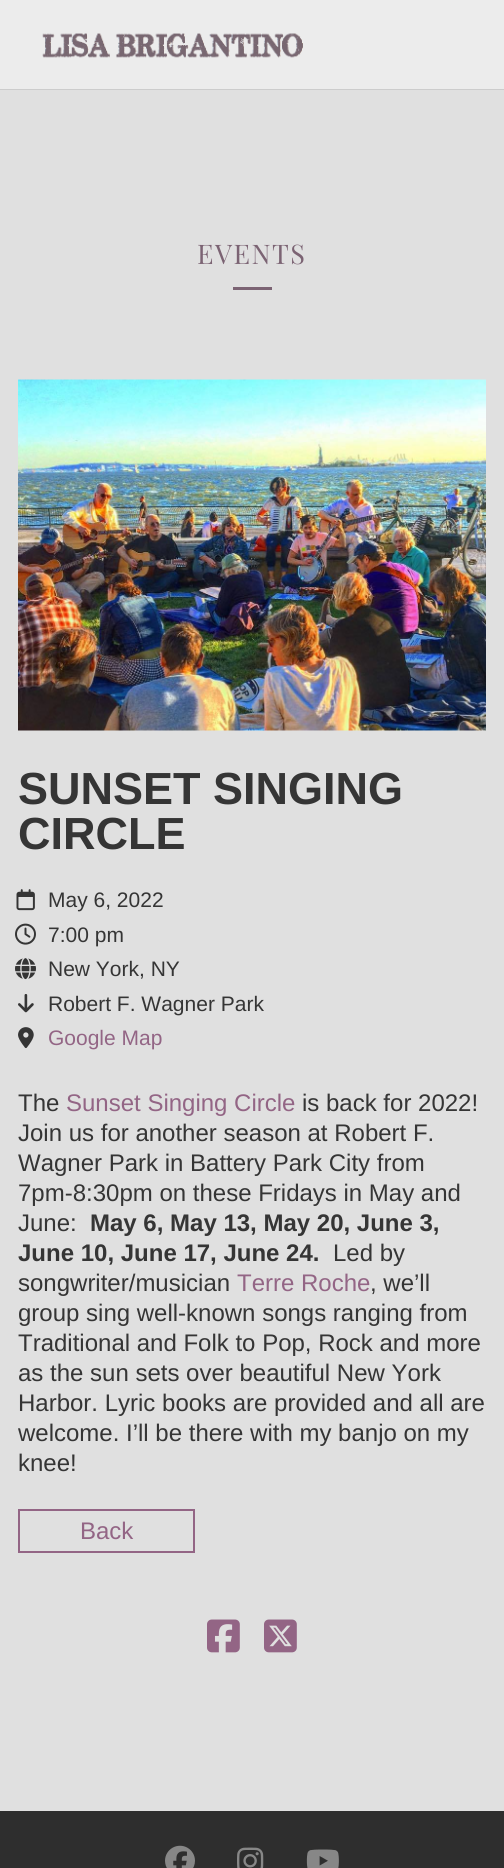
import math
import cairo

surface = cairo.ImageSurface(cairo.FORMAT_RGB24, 504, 1868)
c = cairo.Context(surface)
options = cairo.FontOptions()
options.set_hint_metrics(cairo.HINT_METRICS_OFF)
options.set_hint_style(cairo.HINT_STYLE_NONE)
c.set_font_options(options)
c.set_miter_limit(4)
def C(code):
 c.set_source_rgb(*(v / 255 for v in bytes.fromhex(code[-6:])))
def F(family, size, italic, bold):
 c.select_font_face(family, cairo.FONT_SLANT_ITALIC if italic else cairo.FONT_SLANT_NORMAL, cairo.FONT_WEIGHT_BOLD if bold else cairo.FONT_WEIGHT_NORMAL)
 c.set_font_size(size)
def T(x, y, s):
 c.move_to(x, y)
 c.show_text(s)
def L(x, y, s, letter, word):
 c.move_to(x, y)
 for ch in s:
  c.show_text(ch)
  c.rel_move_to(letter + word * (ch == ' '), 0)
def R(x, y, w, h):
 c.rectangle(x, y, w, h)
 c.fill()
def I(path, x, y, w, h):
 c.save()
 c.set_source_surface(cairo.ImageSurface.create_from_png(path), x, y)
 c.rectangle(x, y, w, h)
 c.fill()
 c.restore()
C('e0e0e0')
c.paint()
C('ececec')
R(0,0,504,89)
C('cccccc')
R(0,89,504,1)
I('1.png',42,33,261,25)
F('Playfair Display',27,0,0)
C('7b6373')
L(197,264,'EVENTS',1.5,0)
R(233,287,39,3)
I('2.png',18,379,468,352)
F('Liberation Sans',45,0,1)
C('353535')
T(18,804,'SUNSET SINGING')
T(18,849,'CIRCLE')
I('3.png',16,889,19,22)
F('Liberation Sans',21,0,0)
T(48,907,'May 6, 2022')
I('4.png',15,923,21,22)
T(48,942,'7:00 pm')
I('5.png',15,958,21,22)
T(48,976,'New York, NY')
I('6.png',18,994,16,19)
T(48,1011,'Robert F. Wagner Park')
I('7.png',18,1027,16,22)
C('936585')
T(48,1045,'Google Map')
F('Liberation Sans',24,0,0)
C('353535')
T(18,1111,'The')
C('936585')
T(66,1111,'Sunset Singing Circle')
C('353535')
T(302,1111,'is back for 2022!')
T(18,1141,'Join us for another season at Robert F.')
T(18,1171,'Wagner Park in Battery Park City from')
T(18,1201,'7pm-8:30pm on these Fridays in May and')
T(18,1231,'June:')
F('Liberation Sans',24,0,1)
T(90,1231,'May 6, May 13, May 20, June 3,')
T(18,1261,'June 10, June 17, June 24.')
F('Liberation Sans',24,0,0)
T(333,1261,'Led by')
T(18,1291,'songwriter/musician')
C('936585')
T(237,1291,'Terre Roche')
C('353535')
T(370,1291,', we’ll')
T(18,1321,'group sing well-known songs ranging from')
T(18,1351,'Traditional and Folk to Pop, Rock and more')
T(18,1381,'as the sun sets over beautiful New York')
T(18,1411,'Harbor. Lyric books are provided and all are')
T(18,1441,'welcome. I’ll be there with my banjo on my')
T(18,1471,'knee!')
c.rectangle(19,1510,175,42)
C('936585')
c.stroke()
T(80,1539,'Back')
I('8.png',207,1619,33,34)
I('9.png',264,1619,33,34)
C('2e2e2e')
R(0,1811,504,57)
I('10.png',165,1845,30,23)
I('11.png',237,1847,27,21)
I('12.png',306,1849,33,19)
surface.write_to_png('o.png')
